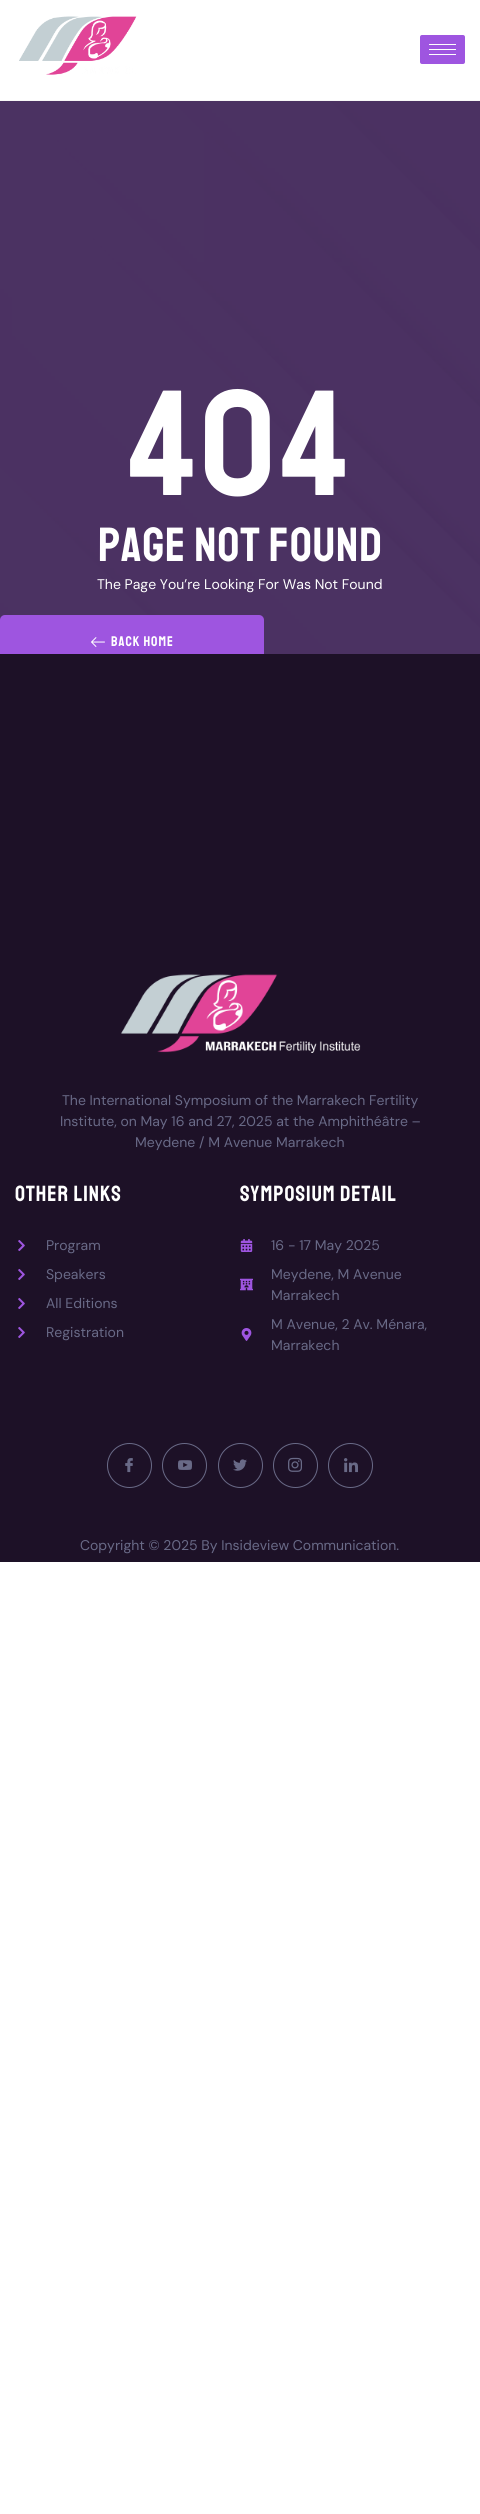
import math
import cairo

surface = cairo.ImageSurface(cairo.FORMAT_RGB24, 480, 2514)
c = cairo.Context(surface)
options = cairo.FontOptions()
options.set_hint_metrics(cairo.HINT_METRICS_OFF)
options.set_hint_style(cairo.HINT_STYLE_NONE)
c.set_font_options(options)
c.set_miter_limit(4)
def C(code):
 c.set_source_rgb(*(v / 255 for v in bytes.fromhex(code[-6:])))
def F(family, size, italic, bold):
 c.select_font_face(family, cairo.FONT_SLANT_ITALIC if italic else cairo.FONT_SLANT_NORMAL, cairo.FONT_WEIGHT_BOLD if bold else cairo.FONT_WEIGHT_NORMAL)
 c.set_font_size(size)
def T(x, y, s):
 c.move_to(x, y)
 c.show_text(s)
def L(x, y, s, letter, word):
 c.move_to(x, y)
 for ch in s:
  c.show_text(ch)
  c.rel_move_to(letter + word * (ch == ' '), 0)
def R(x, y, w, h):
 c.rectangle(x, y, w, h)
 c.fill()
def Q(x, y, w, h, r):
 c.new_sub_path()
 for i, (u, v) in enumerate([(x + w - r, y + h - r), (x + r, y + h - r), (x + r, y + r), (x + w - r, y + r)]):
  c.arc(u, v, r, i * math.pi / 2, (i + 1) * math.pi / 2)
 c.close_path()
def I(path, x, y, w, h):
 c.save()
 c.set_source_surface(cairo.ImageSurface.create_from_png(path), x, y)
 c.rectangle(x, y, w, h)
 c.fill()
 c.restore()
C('ffffff')
c.paint()
C('f8f8f8')
R(0,100,480,1)
I('1.png',19,16,118,59)
C('9e55e0')
Q(420,35,45,29,2)
c.fill()
C('ffffff')
R(429,44,27,1)
R(429,49,27,1)
R(429,54,27,1)
I('2.png',0,101,480,553)
F('Staatliches',150,0,0)
L(128,495,'404',5,0)
F('Staatliches',48,0,0)
L(98,561,'Page Not FOund',1,0)
F('DM Sans',14,0,0)
T(97,589,'The Page You’re Looking For Was Not Found')
C('9e55e0')
Q(0,615,264,54,5)
c.fill()
I('3.png',91,637,14,10)
F('Staatliches',14,0,0)
C('ffffff')
L(111,646,'BACK HOME',1,0)
C('1d1127')
R(0,654,480,908)
I('4.png',121,974,240,79)
F('DM Sans',14,0,0)
C('696a87')
T(62,1105,'The International Symposium of the Marrakech Fertility')
T(60,1126,'Institute, on May 16 and 27, 2025 at the Amphithéâtre –')
T(135,1147,'Meydene / M Avenue Marrakech')
F('Staatliches',22,0,0)
C('ffffff')
L(15,1201,'Other links',1,0)
I('5.png',18,1240,7,11)
F('DM Sans',14,0,0)
C('696a87')
T(46,1250,'Program')
I('5.png',18,1269,7,11)
T(46,1279,'Speakers')
I('5.png',18,1298,7,11)
T(46,1308,'All Editions')
I('5.png',18,1327,7,11)
T(46,1337,'Registration')
F('Staatliches',22,0,0)
C('ffffff')
L(240,1201,'Symposium detail',1,0)
I('6.png',240,1239,13,13)
F('DM Sans',14,0,0)
C('696a87')
T(271,1250,'16 - 17 May 2025')
I('7.png',240,1278,13,13)
T(271,1279,'Meydene, M Avenue')
T(271,1300,'Marrakech')
I('8.png',241,1328,11,13)
T(271,1329,'M Avenue, 2 Av. Ménara,')
T(271,1350,'Marrakech')
c.new_path()
c.arc(129.5,1465.5,22,0,2 * math.pi)
c.set_line_width(1)
c.stroke()
I('9.png',125,1458,8,15)
c.arc(184.5,1465.5,22,0,2 * math.pi)
c.stroke()
I('10.png',178,1460,14,10)
c.arc(240.5,1465.5,22,0,2 * math.pi)
c.stroke()
I('11.png',233,1459,14,12)
c.arc(295.5,1465.5,22,0,2 * math.pi)
c.stroke()
I('12.png',288,1457,14,15)
c.arc(350.5,1465.5,22,0,2 * math.pi)
c.stroke()
I('13.png',344,1458,14,15)
T(80,1550,'Copyright © 2025 By Insideview Communication.')
surface.write_to_png('o.png')
